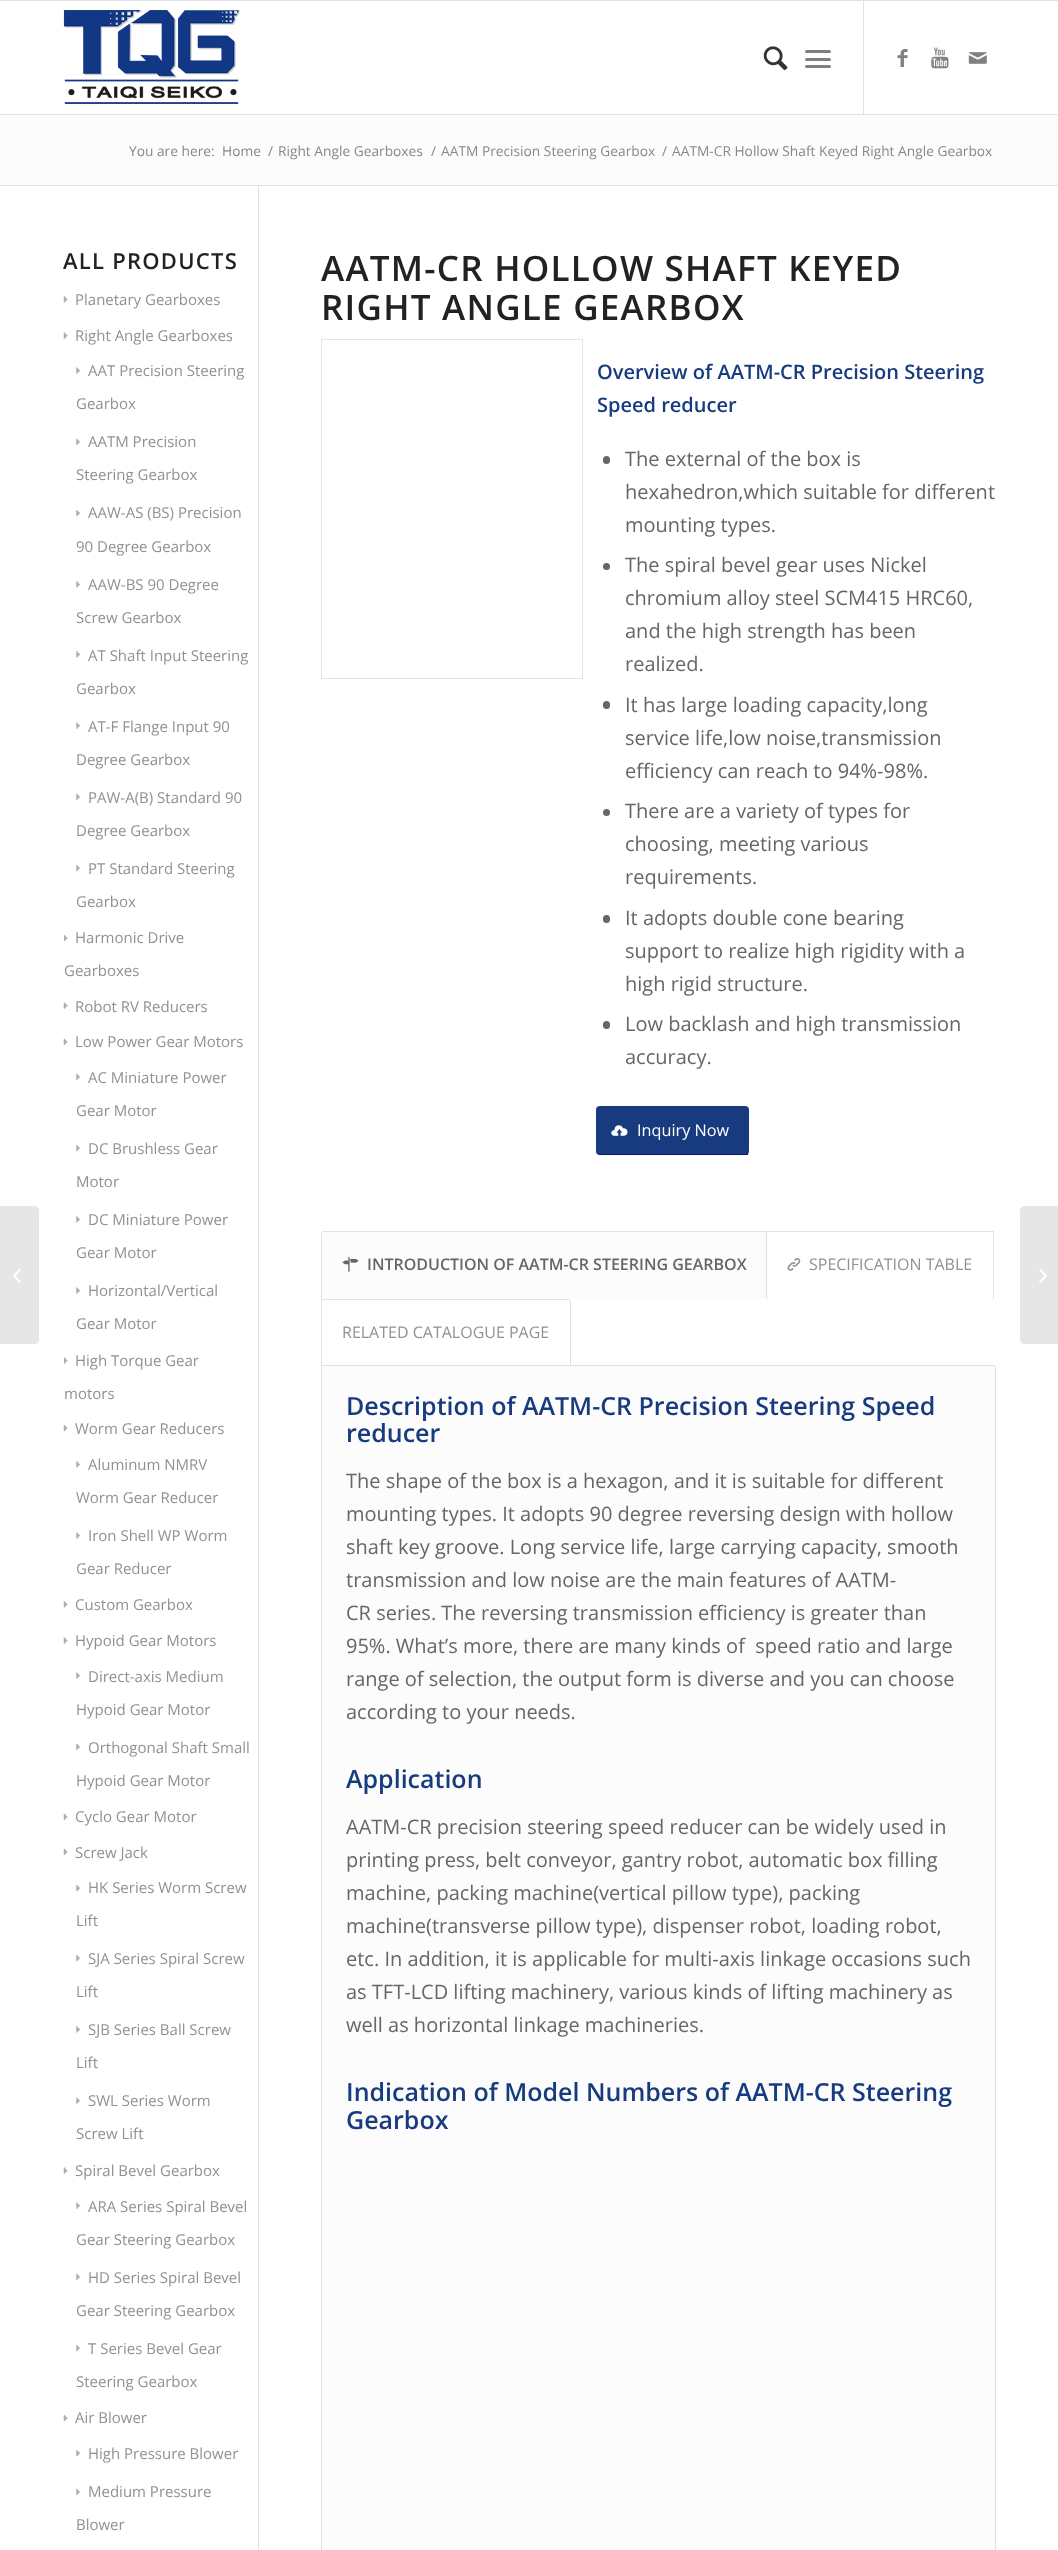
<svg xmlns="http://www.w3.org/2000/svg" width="1058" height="2550">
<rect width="100%" height="100%" fill="#fff"/>
<rect width="1058" height="1" fill="#e1e1e1"/>
<rect y="114" width="1058" height="1" fill="#e1e1e1"/>
<image x="63" y="10" width="178" height="94" href="media/1.png"/>
<rect x="863" y="1" width="1" height="113" fill="#e1e1e1"/>
<image x="763" y="46" width="25" height="25" href="media/2.png"/>
<rect x="805" y="58" width="26" height="3" rx="1.5" fill="#808080"/>
<rect x="805" y="50" width="26" height="3" rx="1.5" fill="#808080"/>
<rect x="805" y="65" width="26" height="3" rx="1.5" fill="#808080"/>
<image x="897" y="49" width="11" height="18" href="media/3.png"/>
<image x="931" y="47" width="18" height="22" href="media/4.png"/>
<image x="968" y="52" width="19" height="12" href="media/5.png"/>
<path d="M0 1206h34c3 0 5 2 5 5v128c0 3-2 5-5 5h-34z" fill="#e6e6e6"/>
<image x="13" y="1269" width="8" height="14" href="media/6.png"/>
<rect y="115" width="1058" height="70" fill="#fcfcfc"/>
<text x="129" y="156" style="font-family:Open Sans;font-size:13.75px;fill:#888">You are here:</text>
<text x="222" y="156" style="font-family:Open Sans;font-size:13.75px;fill:#888">Home</text>
<text x="268" y="156" style="font-family:Open Sans;font-size:13.75px;fill:#888">/</text>
<text x="278" y="156" style="font-family:Open Sans;font-size:13.75px;fill:#888">Right Angle Gearboxes</text>
<text x="431" y="156" style="font-family:Open Sans;font-size:13.75px;fill:#888">/</text>
<text x="441" y="156" style="font-family:Open Sans;font-size:13.75px;fill:#888">AATM Precision Steering Gearbox</text>
<text x="662" y="156" style="font-family:Open Sans;font-size:13.75px;fill:#888">/</text>
<text x="672" y="156" style="font-family:Open Sans;font-size:13.75px;fill:#888">AATM-CR Hollow Shaft Keyed Right Angle Gearbox</text>
<rect y="185" width="1058" height="1" fill="#e1e1e1"/>
<text x="63" y="269" style="font-family:Open Sans;font-size:22px;font-weight:600;letter-spacing:1.25px;fill:#222">ALL PRODUCTS</text>
<image x="63" y="296" width="5" height="7" href="media/7.png"/>
<text x="75" y="305" style="font-family:Open Sans;font-size:15px;fill:#919191">Planetary Gearboxes</text>
<image x="63" y="332" width="5" height="7" href="media/8.png"/>
<text x="75" y="341" style="font-family:Open Sans;font-size:15px;fill:#919191">Right Angle Gearboxes</text>
<image x="76" y="367" width="4" height="7" href="media/9.png"/>
<text x="88" y="376" style="font-family:Open Sans;font-size:15px;fill:#919191">AAT Precision Steering</text>
<text x="76" y="409" style="font-family:Open Sans;font-size:15px;fill:#919191">Gearbox</text>
<image x="76" y="438" width="4" height="7" href="media/10.png"/>
<text x="88" y="447" style="font-family:Open Sans;font-size:15px;fill:#919191">AATM Precision</text>
<text x="76" y="480" style="font-family:Open Sans;font-size:15px;fill:#919191">Steering Gearbox</text>
<image x="76" y="510" width="4" height="7" href="media/11.png"/>
<text x="88" y="518" style="font-family:Open Sans;font-size:15px;fill:#919191">AAW-AS (BS) Precision</text>
<text x="76" y="552" style="font-family:Open Sans;font-size:15px;fill:#919191">90 Degree Gearbox</text>
<image x="76" y="581" width="4" height="7" href="media/12.png"/>
<text x="88" y="590" style="font-family:Open Sans;font-size:15px;fill:#919191">AAW-BS 90 Degree</text>
<text x="76" y="623" style="font-family:Open Sans;font-size:15px;fill:#919191">Screw Gearbox</text>
<image x="76" y="651" width="4" height="7" href="media/12.png"/>
<text x="88" y="661" style="font-family:Open Sans;font-size:15px;fill:#919191">AT Shaft Input Steering</text>
<text x="76" y="694" style="font-family:Open Sans;font-size:15px;fill:#919191">Gearbox</text>
<image x="76" y="722" width="4" height="7" href="media/9.png"/>
<text x="88" y="732" style="font-family:Open Sans;font-size:15px;fill:#919191">AT-F Flange Input 90</text>
<text x="76" y="765" style="font-family:Open Sans;font-size:15px;fill:#919191">Degree Gearbox</text>
<image x="76" y="793" width="4" height="7" href="media/10.png"/>
<text x="88" y="803" style="font-family:Open Sans;font-size:15px;fill:#919191">PAW-A(B) Standard 90</text>
<text x="76" y="836" style="font-family:Open Sans;font-size:15px;fill:#919191">Degree Gearbox</text>
<image x="76" y="865" width="4" height="7" href="media/11.png"/>
<text x="88" y="874" style="font-family:Open Sans;font-size:15px;fill:#919191">PT Standard Steering</text>
<text x="76" y="907" style="font-family:Open Sans;font-size:15px;fill:#919191">Gearbox</text>
<image x="64" y="935" width="4" height="7" href="media/13.png"/>
<text x="75" y="943" style="font-family:Open Sans;font-size:15px;fill:#919191">Harmonic Drive</text>
<text x="64" y="976" style="font-family:Open Sans;font-size:15px;fill:#919191">Gearboxes</text>
<image x="63" y="1002" width="5" height="7" href="media/8.png"/>
<text x="75" y="1012" style="font-family:Open Sans;font-size:15px;fill:#919191">Robot RV Reducers</text>
<image x="63" y="1038" width="5" height="7" href="media/14.png"/>
<text x="75" y="1047" style="font-family:Open Sans;font-size:15px;fill:#919191">Low Power Gear Motors</text>
<image x="76" y="1073" width="4" height="7" href="media/10.png"/>
<text x="88" y="1083" style="font-family:Open Sans;font-size:15px;fill:#919191">AC Miniature Power</text>
<text x="76" y="1116" style="font-family:Open Sans;font-size:15px;fill:#919191">Gear Motor</text>
<image x="76" y="1145" width="4" height="7" href="media/11.png"/>
<text x="88" y="1154" style="font-family:Open Sans;font-size:15px;fill:#919191">DC Brushless Gear</text>
<text x="76" y="1187" style="font-family:Open Sans;font-size:15px;fill:#919191">Motor</text>
<image x="76" y="1216" width="4" height="7" href="media/12.png"/>
<text x="88" y="1225" style="font-family:Open Sans;font-size:15px;fill:#919191">DC Miniature Power</text>
<text x="76" y="1258" style="font-family:Open Sans;font-size:15px;fill:#919191">Gear Motor</text>
<image x="76" y="1287" width="4" height="7" href="media/9.png"/>
<text x="88" y="1296" style="font-family:Open Sans;font-size:15px;fill:#919191">Horizontal/Vertical</text>
<text x="76" y="1329" style="font-family:Open Sans;font-size:15px;fill:#919191">Gear Motor</text>
<image x="64" y="1357" width="4" height="7" href="media/15.png"/>
<text x="75" y="1366" style="font-family:Open Sans;font-size:15px;fill:#919191">High Torque Gear</text>
<text x="64" y="1399" style="font-family:Open Sans;font-size:15px;fill:#919191">motors</text>
<image x="63" y="1425" width="5" height="7" href="media/16.png"/>
<text x="75" y="1434" style="font-family:Open Sans;font-size:15px;fill:#919191">Worm Gear Reducers</text>
<image x="76" y="1461" width="4" height="7" href="media/12.png"/>
<text x="88" y="1470" style="font-family:Open Sans;font-size:15px;fill:#919191">Aluminum NMRV</text>
<text x="76" y="1503" style="font-family:Open Sans;font-size:15px;fill:#919191">Worm Gear Reducer</text>
<image x="76" y="1532" width="4" height="7" href="media/9.png"/>
<text x="88" y="1541" style="font-family:Open Sans;font-size:15px;fill:#919191">Iron Shell WP Worm</text>
<text x="76" y="1574" style="font-family:Open Sans;font-size:15px;fill:#919191">Gear Reducer</text>
<image x="63" y="1601" width="5" height="7" href="media/7.png"/>
<text x="75" y="1610" style="font-family:Open Sans;font-size:15px;fill:#919191">Custom Gearbox</text>
<image x="63" y="1637" width="5" height="7" href="media/8.png"/>
<text x="75" y="1646" style="font-family:Open Sans;font-size:15px;fill:#919191">Hypoid Gear Motors</text>
<image x="76" y="1672" width="4" height="7" href="media/9.png"/>
<text x="88" y="1682" style="font-family:Open Sans;font-size:15px;fill:#919191">Direct-axis Medium</text>
<text x="76" y="1715" style="font-family:Open Sans;font-size:15px;fill:#919191">Hypoid Gear Motor</text>
<image x="76" y="1743" width="4" height="7" href="media/10.png"/>
<text x="88" y="1753" style="font-family:Open Sans;font-size:15px;fill:#919191">Orthogonal Shaft Small</text>
<text x="76" y="1786" style="font-family:Open Sans;font-size:15px;fill:#919191">Hypoid Gear Motor</text>
<image x="63" y="1813" width="5" height="7" href="media/14.png"/>
<text x="75" y="1822" style="font-family:Open Sans;font-size:15px;fill:#919191">Cyclo Gear Motor</text>
<image x="63" y="1848" width="5" height="7" href="media/14.png"/>
<text x="75" y="1858" style="font-family:Open Sans;font-size:15px;fill:#919191">Screw Jack</text>
<image x="76" y="1885" width="4" height="7" href="media/11.png"/>
<text x="88" y="1893" style="font-family:Open Sans;font-size:15px;fill:#919191">HK Series Worm Screw</text>
<text x="76" y="1926" style="font-family:Open Sans;font-size:15px;fill:#919191">Lift</text>
<image x="76" y="1955" width="4" height="7" href="media/11.png"/>
<text x="88" y="1964" style="font-family:Open Sans;font-size:15px;fill:#919191">SJA Series Spiral Screw</text>
<text x="76" y="1997" style="font-family:Open Sans;font-size:15px;fill:#919191">Lift</text>
<image x="76" y="2026" width="4" height="7" href="media/12.png"/>
<text x="88" y="2035" style="font-family:Open Sans;font-size:15px;fill:#919191">SJB Series Ball Screw</text>
<text x="76" y="2068" style="font-family:Open Sans;font-size:15px;fill:#919191">Lift</text>
<image x="76" y="2097" width="4" height="7" href="media/9.png"/>
<text x="88" y="2106" style="font-family:Open Sans;font-size:15px;fill:#919191">SWL Series Worm</text>
<text x="76" y="2139" style="font-family:Open Sans;font-size:15px;fill:#919191">Screw Lift</text>
<image x="63" y="2167" width="5" height="7" href="media/8.png"/>
<text x="75" y="2176" style="font-family:Open Sans;font-size:15px;fill:#919191">Spiral Bevel Gearbox</text>
<image x="76" y="2202" width="4" height="7" href="media/9.png"/>
<text x="88" y="2212" style="font-family:Open Sans;font-size:15px;fill:#919191">ARA Series Spiral Bevel</text>
<text x="76" y="2245" style="font-family:Open Sans;font-size:15px;fill:#919191">Gear Steering Gearbox</text>
<image x="76" y="2273" width="4" height="7" href="media/10.png"/>
<text x="88" y="2283" style="font-family:Open Sans;font-size:15px;fill:#919191">HD Series Spiral Bevel</text>
<text x="76" y="2316" style="font-family:Open Sans;font-size:15px;fill:#919191">Gear Steering Gearbox</text>
<image x="76" y="2345" width="4" height="7" href="media/11.png"/>
<text x="88" y="2354" style="font-family:Open Sans;font-size:15px;fill:#919191">T Series Bevel Gear</text>
<text x="76" y="2387" style="font-family:Open Sans;font-size:15px;fill:#919191">Steering Gearbox</text>
<image x="63" y="2415" width="5" height="7" href="media/16.png"/>
<text x="75" y="2423" style="font-family:Open Sans;font-size:15px;fill:#919191">Air Blower</text>
<image x="76" y="2450" width="4" height="7" href="media/11.png"/>
<text x="88" y="2459" style="font-family:Open Sans;font-size:15px;fill:#919191">High Pressure Blower</text>
<image x="76" y="2488" width="4" height="7" href="media/10.png"/>
<text x="88" y="2497" style="font-family:Open Sans;font-size:15px;fill:#919191">Medium Pressure</text>
<text x="76" y="2530" style="font-family:Open Sans;font-size:15px;fill:#919191">Blower</text>
<rect x="258" y="186" width="1" height="2364" fill="#e1e1e1"/>
<text x="321" y="281" style="font-family:Open Sans;font-size:35px;font-weight:600;letter-spacing:1.25px;fill:#222">AATM-CR HOLLOW SHAFT KEYED</text>
<text x="321" y="320" style="font-family:Open Sans;font-size:35px;font-weight:600;letter-spacing:1.25px;fill:#222">RIGHT ANGLE GEARBOX</text>
<rect x="321.5" y="339.5" width="261" height="339" fill="none" stroke="#e5e5e5"/>
<text x="597" y="379" style="font-family:Open Sans;font-size:20px;font-weight:600;fill:#183b80">Overview of AATM-CR Precision Steering</text>
<text x="597" y="412" style="font-family:Open Sans;font-size:20px;font-weight:600;fill:#183b80">Speed reducer</text>
<rect x="603" y="456" width="7" height="8" rx="3.5" fill="#666"/>
<text x="625" y="466" style="font-family:Open Sans;font-size:20px;fill:#666">The external of the box is</text>
<text x="625" y="499" style="font-family:Open Sans;font-size:20px;fill:#666">hexahedron,which suitable for different</text>
<text x="625" y="532" style="font-family:Open Sans;font-size:20px;fill:#666">mounting types.</text>
<circle cx="606.5" cy="566.5" r="3.5" fill="#666"/>
<text x="625" y="572" style="font-family:Open Sans;font-size:20px;fill:#666">The spiral bevel gear uses Nickel</text>
<text x="625" y="605" style="font-family:Open Sans;font-size:20px;fill:#666">chromium alloy steel SCM415 HRC60,</text>
<text x="625" y="638" style="font-family:Open Sans;font-size:20px;fill:#666">and the high strength has been</text>
<text x="625" y="671" style="font-family:Open Sans;font-size:20px;fill:#666">realized.</text>
<rect x="603" y="701" width="7" height="8" rx="3.5" fill="#666"/>
<text x="625" y="712" style="font-family:Open Sans;font-size:20px;fill:#666">It has large loading capacity,long</text>
<text x="625" y="745" style="font-family:Open Sans;font-size:20px;fill:#666">service life,low noise,transmission</text>
<text x="625" y="778" style="font-family:Open Sans;font-size:20px;fill:#666">efficiency can reach to 94%-98%.</text>
<circle cx="606.5" cy="812.5" r="3.5" fill="#666"/>
<text x="625" y="818" style="font-family:Open Sans;font-size:20px;fill:#666">There are a variety of types for</text>
<text x="625" y="851" style="font-family:Open Sans;font-size:20px;fill:#666">choosing, meeting various</text>
<text x="625" y="884" style="font-family:Open Sans;font-size:20px;fill:#666">requirements.</text>
<rect x="603" y="915" width="7" height="8" rx="3.5" fill="#666"/>
<text x="625" y="925" style="font-family:Open Sans;font-size:20px;fill:#666">It adopts double cone bearing</text>
<text x="625" y="958" style="font-family:Open Sans;font-size:20px;fill:#666">support to realize high rigidity with a</text>
<text x="625" y="991" style="font-family:Open Sans;font-size:20px;fill:#666">high rigid structure.</text>
<rect x="603" y="1021" width="7" height="8" rx="3.5" fill="#666"/>
<text x="625" y="1031" style="font-family:Open Sans;font-size:20px;fill:#666">Low backlash and high transmission</text>
<text x="625" y="1064" style="font-family:Open Sans;font-size:20px;fill:#666">accuracy.</text>
<rect x="596" y="1106" width="153" height="49" rx="4" fill="#183b80"/>
<rect x="599" y="1154" width="149" height="1" fill="#061960"/>
<image x="611" y="1125" width="17" height="11" href="media/17.png"/>
<text x="637" y="1136" style="font-family:Open Sans;font-size:16.25px;fill:#fff">Inquiry Now</text>
<rect x="766" y="1231" width="228" height="1" fill="#e1e1e1"/>
<path d="M323.5 1231h444.5v68h-447v-65.5c0-1.5 1-2.5 2.5-2.5z" fill="#fcfcfc"/>
<rect x="323" y="1231" width="445" height="1" fill="#e1e1e1"/>
<rect x="766" y="1231" width="1" height="68" fill="#e1e1e1"/>
<rect x="321" y="1233" width="1" height="66" fill="#e1e1e1"/>
<image x="342" y="1257" width="17" height="15" href="media/18.png"/>
<text x="367" y="1270" style="font-family:Open Sans;font-size:16px;font-weight:600;fill:#666">INTRODUCTION OF AATM-CR STEERING GEARBOX</text>
<rect x="993" y="1231" width="1" height="68" fill="#e1e1e1"/>
<image x="787" y="1258" width="14" height="13" href="media/19.png"/>
<text x="809" y="1270" style="font-family:Open Sans;font-size:16px;fill:#919191">SPECIFICATION TABLE</text>
<rect x="321" y="1299" width="249" height="1" fill="#e1e1e1"/>
<rect x="321.5" y="1365.5" width="674" height="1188" rx="2" fill="#fcfcfc" stroke="#e1e1e1"/>
<rect x="570" y="1300" width="1" height="66" fill="#e1e1e1"/>
<rect x="321" y="1299" width="1" height="67" fill="#e1e1e1"/>
<text x="342" y="1338" style="font-family:Open Sans;font-size:16px;fill:#919191">RELATED CATALOGUE PAGE</text>
<text x="346" y="1415" style="font-family:Open Sans;font-size:25px;font-weight:600;fill:#183b80">Description of AATM-CR Precision Steering Speed</text>
<text x="346" y="1442" style="font-family:Open Sans;font-size:25px;font-weight:600;fill:#183b80">reducer</text>
<text x="346" y="1488" style="font-family:Open Sans;font-size:20px;fill:#666">The shape of the box is a hexagon, and it is suitable for different</text>
<text x="346" y="1521" style="font-family:Open Sans;font-size:20px;fill:#666">mounting types. It adopts 90 degree reversing design with hollow</text>
<text x="346" y="1554" style="font-family:Open Sans;font-size:20px;fill:#666">shaft key groove. Long service life, large carrying capacity, smooth</text>
<text x="346" y="1587" style="font-family:Open Sans;font-size:20px;fill:#666">transmission and low noise are the main features of AATM-</text>
<text x="346" y="1620" style="font-family:Open Sans;font-size:20px;fill:#666">CR series. The reversing transmission efficiency is greater than</text>
<text x="346" y="1653" style="font-family:Open Sans;font-size:20px;fill:#666" xml:space="preserve">95%. What’s more, there are many kinds of  speed ratio and large</text>
<text x="346" y="1686" style="font-family:Open Sans;font-size:20px;fill:#666">range of selection, the output form is diverse and you can choose</text>
<text x="346" y="1719" style="font-family:Open Sans;font-size:20px;fill:#666">according to your needs.</text>
<text x="346" y="1788" style="font-family:Open Sans;font-size:25px;font-weight:600;fill:#183b80">Application</text>
<text x="346" y="1834" style="font-family:Open Sans;font-size:20px;fill:#666">AATM-CR precision steering speed reducer can be widely used in</text>
<text x="346" y="1867" style="font-family:Open Sans;font-size:20px;fill:#666">printing press, belt conveyor, gantry robot, automatic box filling</text>
<text x="346" y="1900" style="font-family:Open Sans;font-size:20px;fill:#666">machine, packing machine(vertical pillow type), packing</text>
<text x="346" y="1933" style="font-family:Open Sans;font-size:20px;fill:#666">machine(transverse pillow type), dispenser robot, loading robot,</text>
<text x="346" y="1966" style="font-family:Open Sans;font-size:20px;fill:#666">etc. In addition, it is applicable for multi-axis linkage occasions such</text>
<text x="346" y="1999" style="font-family:Open Sans;font-size:20px;fill:#666">as TFT-LCD lifting machinery, various kinds of lifting machinery as</text>
<text x="346" y="2032" style="font-family:Open Sans;font-size:20px;fill:#666">well as horizontal linkage machineries.</text>
<text x="346" y="2101" style="font-family:Open Sans;font-size:25px;font-weight:600;fill:#183b80">Indication of Model Numbers of AATM-CR Steering</text>
<text x="346" y="2129" style="font-family:Open Sans;font-size:25px;font-weight:600;fill:#183b80">Gearbox</text>
<path d="M1025 1206h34v138h-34c-3 0-5-2-5-5v-128c0-3 2-5 5-5z" fill="#e6e6e6"/>
<image x="1039" y="1269" width="8" height="14" href="media/20.png"/>
</svg>
